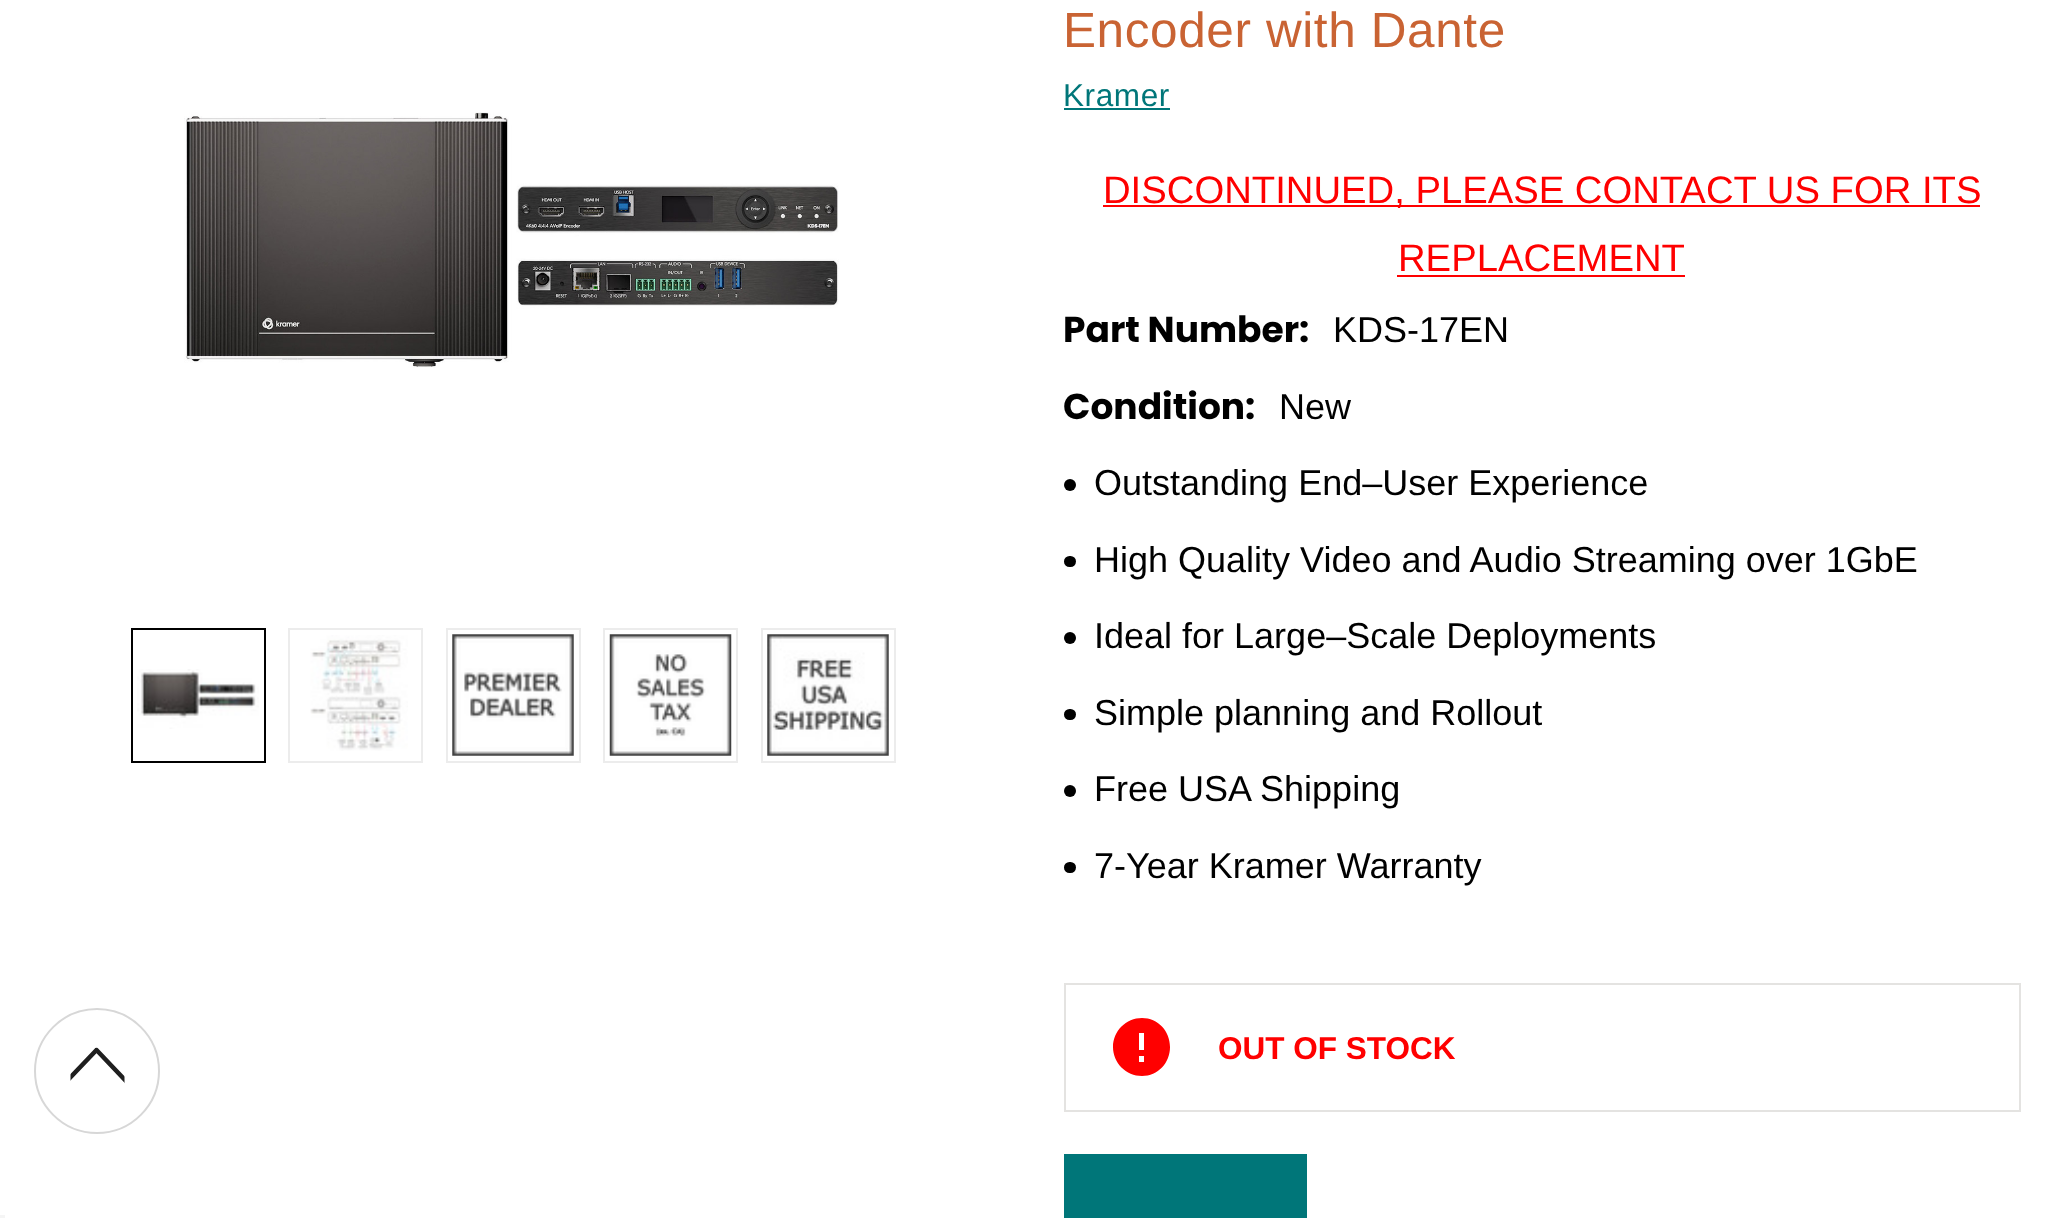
<svg xmlns="http://www.w3.org/2000/svg" width="2054" height="1218">
<defs>
<clipPath id="clip1"><path d="M124.5 1047.5v54h-54v-54z"/></clipPath>
</defs>
<rect width="100%" height="100%" fill="#fff"/>
<circle cx="97" cy="1071" r="62" fill="none" stroke="#d7d7d7" stroke-width="2"/>
<g clip-path="url(#clip1)">
<path d="M141.5 1097.5l-45-47.5l-45 47" fill="none" stroke="#1f1f1f" stroke-width="4.5" stroke-linecap="round" stroke-linejoin="round"/>
</g>
<text x="1063" y="47" style="font-family:Liberation Sans;font-size:49.5px;letter-spacing:0.6px;fill:#c96333">Encoder with Dante</text>
<text x="1063" y="106" style="font-family:Liberation Sans;font-size:31.5px;letter-spacing:0.6px;fill:#007679">Kramer</text>
<rect x="1064" y="108" width="106" height="2" fill="#007679"/>
<image x="184" y="112" width="655" height="256" href="media/1.png"/>
<rect x="132" y="629" width="133" height="133" fill="none" stroke="#000" stroke-width="2"/>
<image x="137" y="669" width="122" height="60" href="media/2.png"/>
<rect x="289" y="629" width="133" height="133" fill="none" stroke="#ececec" stroke-width="2"/>
<image x="310" y="635" width="98" height="116" href="media/3.png"/>
<rect x="447" y="629" width="133" height="133" fill="none" stroke="#ececec" stroke-width="2"/>
<image x="452" y="634" width="122" height="122" href="media/4.png"/>
<rect x="604" y="629" width="133" height="133" fill="none" stroke="#ececec" stroke-width="2"/>
<image x="609" y="634" width="123" height="122" href="media/5.png"/>
<rect x="762" y="629" width="133" height="133" fill="none" stroke="#ececec" stroke-width="2"/>
<image x="767" y="634" width="122" height="122" href="media/6.png"/>
<rect x="1103" y="205" width="877" height="2" fill="#f00"/>
<text x="1103" y="203" style="font-family:Liberation Sans;font-size:38.25px;fill:#f00">DISCONTINUED, PLEASE CONTACT US FOR ITS</text>
<text x="1398" y="271" style="font-family:Liberation Sans;font-size:38.25px;fill:#f00">REPLACEMENT</text>
<rect x="1397" y="275" width="288" height="2" fill="#f00"/>
<text x="1063" y="342" style="font-family:Poppins;font-size:36px;font-weight:bold;fill:#000">Part Number:</text>
<text x="1333" y="342" style="font-family:Liberation Sans;font-size:36px;fill:#000">KDS-17EN</text>
<text x="1063" y="419" style="font-family:Poppins;font-size:36px;font-weight:bold;fill:#000">Condition:</text>
<text x="1279" y="419" style="font-family:Liberation Sans;font-size:36px;fill:#000">New</text>
<circle cx="1070" cy="485" r="6" fill="#000"/>
<text x="1094" y="495" style="font-family:Liberation Sans;font-size:36px;fill:#000">Outstanding End–User Experience</text>
<rect x="1064" y="556" width="12" height="11" rx="5.5" fill="#000"/>
<text x="1094" y="572" style="font-family:Liberation Sans;font-size:36px;fill:#000">High Quality Video and Audio Streaming over 1GbE</text>
<circle cx="1070" cy="638" r="6" fill="#000"/>
<text x="1094" y="648" style="font-family:Liberation Sans;font-size:36px;fill:#000">Ideal for Large–Scale Deployments</text>
<rect x="1064" y="709" width="12" height="11" rx="5.5" fill="#000"/>
<text x="1094" y="725" style="font-family:Liberation Sans;font-size:36px;fill:#000">Simple planning and Rollout</text>
<circle cx="1070" cy="791" r="6" fill="#000"/>
<text x="1094" y="801" style="font-family:Liberation Sans;font-size:36px;fill:#000">Free USA Shipping</text>
<rect x="1064" y="862" width="12" height="11" rx="5.5" fill="#000"/>
<text x="1094" y="878" style="font-family:Liberation Sans;font-size:36px;fill:#000">7-Year Kramer Warranty</text>
<rect x="1065" y="984" width="955" height="127" fill="none" stroke="#e4e3e1" stroke-width="2"/>
<path d="M1142 1018c-16 0-29 13-29 29c0 16 13 29 29 29c16 0 28-13 28-29c0-16-12-29-28-29zm2 44h-5v-6h5zm0-12h-5v-17h5z" fill="#f00"/>
<text x="1218" y="1059" style="font-family:Liberation Sans;font-size:31.5px;font-weight:bold;fill:#f00">OUT OF STOCK</text>
<rect x="1064" y="1154" width="243" height="64" fill="#007679"/>
<rect y="1215" width="5" height="3" fill="#f5f5f5"/>
</svg>
